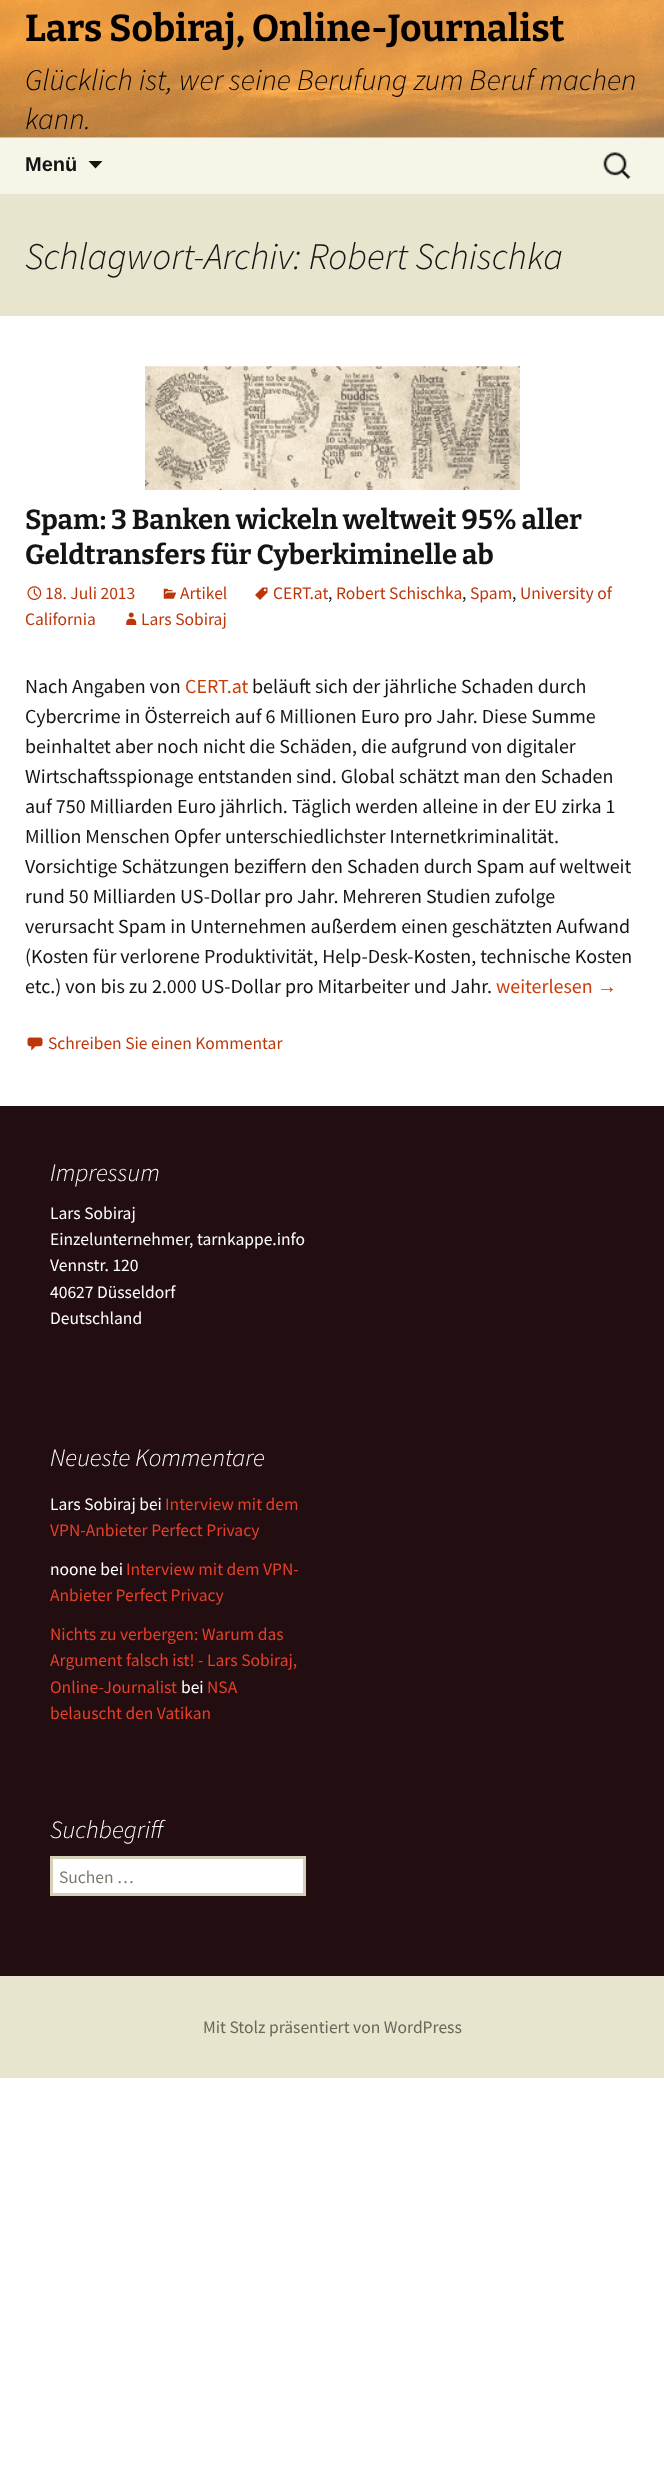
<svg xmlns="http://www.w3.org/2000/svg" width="664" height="2490">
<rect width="100%" height="100%" fill="#fff"/>
<image x="0" y="0" width="664" height="138" href="media/1.png"/>
<text x="25" y="41" style="font-family:Bitter;font-size:37.5px;font-weight:100;fill:#020000">Lars Sobiraj, Online-Journalist</text>
<text x="25" y="90" style="font-family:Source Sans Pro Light;font-size:30px;font-weight:300;font-style:italic;fill:#020000">Glücklich ist, wer seine Berufung zum Beruf machen</text>
<text x="25" y="129" style="font-family:Source Sans Pro Light;font-size:30px;font-weight:300;font-style:italic;fill:#020000">kann.</text>
<rect y="138" width="664" height="56" fill="#f7f5e7"/>
<text x="25" y="171" style="font-family:Liberation Sans;font-size:20px;font-weight:bold;fill:#141412">Menü</text>
<path d="M88.5 161l7 7.5l7-7.5z" fill="#141412"/>
<image x="603" y="152" width="28" height="27" href="media/2.png"/>
<rect y="194" width="664" height="122" fill="#e8e5ce"/>
<text x="25" y="269" style="font-family:Source Sans Pro Light;font-size:37.5px;font-weight:300;font-style:italic;fill:#141412">Schlagwort-Archiv: Robert Schischka</text>
<image x="145" y="366" width="375" height="124" href="media/3.png"/>
<text x="25" y="529" style="font-family:Bitter;font-size:27.5px;font-weight:100;fill:#141412">Spam: 3 Banken wickeln weltweit 95% aller</text>
<text x="25" y="564" style="font-family:Bitter;font-size:27.5px;font-weight:100;fill:#141412">Geldtransfers für Cyberkiminelle ab</text>
<image x="255" y="587" width="13" height="13" href="media/4.png"/>
<text x="273" y="599" style="font-family:Source Sans Pro;font-size:17.5px;fill:#bc360a">CERT.at</text>
<text x="328" y="599" style="font-family:Source Sans Pro;font-size:17.5px;fill:#141412">,</text>
<text x="336" y="599" style="font-family:Source Sans Pro;font-size:17.5px;fill:#bc360a">Robert Schischka</text>
<text x="462" y="599" style="font-family:Source Sans Pro;font-size:17.5px;fill:#141412">,</text>
<text x="470" y="599" style="font-family:Source Sans Pro;font-size:17.5px;fill:#bc360a">Spam</text>
<text x="512" y="599" style="font-family:Source Sans Pro;font-size:17.5px;fill:#141412">,</text>
<text x="520" y="599" style="font-family:Source Sans Pro;font-size:17.5px;fill:#bc360a">University of</text>
<text x="25" y="625" style="font-family:Source Sans Pro;font-size:17.5px;fill:#bc360a">California</text>
<image x="27" y="586" width="15" height="14" href="media/5.png"/>
<text x="45" y="599" style="font-family:Source Sans Pro;font-size:17.5px;fill:#bc360a">18. Juli 2013</text>
<image x="163" y="588" width="14" height="11" href="media/6.png"/>
<text x="180" y="599" style="font-family:Source Sans Pro;font-size:17.5px;fill:#bc360a">Artikel</text>
<image x="126" y="612" width="11" height="13" href="media/7.png"/>
<text x="141" y="625" style="font-family:Source Sans Pro;font-size:17.5px;fill:#bc360a">Lars Sobiraj</text>
<text x="25" y="693" style="font-family:Source Sans Pro;font-size:20px;fill:#141412">Nach Angaben von</text>
<text x="185" y="693" style="font-family:Source Sans Pro;font-size:20px;fill:#ca3c08">CERT.at</text>
<text x="252" y="693" style="font-family:Source Sans Pro;font-size:20px;fill:#141412">beläuft sich der jährliche Schaden durch</text>
<text x="25" y="723" style="font-family:Source Sans Pro;font-size:20px;fill:#141412">Cybercrime in Österreich auf 6 Millionen Euro pro Jahr. Diese Summe</text>
<text x="25" y="753" style="font-family:Source Sans Pro;font-size:20px;fill:#141412">beinhaltet aber noch nicht die Schäden, die aufgrund von digitaler</text>
<text x="25" y="783" style="font-family:Source Sans Pro;font-size:20px;fill:#141412">Wirtschaftsspionage entstanden sind. Global schätzt man den Schaden</text>
<text x="25" y="813" style="font-family:Source Sans Pro;font-size:20px;fill:#141412">auf 750 Milliarden Euro jährlich. Täglich werden alleine in der EU zirka 1</text>
<text x="25" y="843" style="font-family:Source Sans Pro;font-size:20px;fill:#141412">Million Menschen Opfer unterschiedlichster Internetkriminalität.</text>
<text x="25" y="873" style="font-family:Source Sans Pro;font-size:20px;fill:#141412">Vorsichtige Schätzungen beziffern den Schaden durch Spam auf weltweit</text>
<text x="25" y="903" style="font-family:Source Sans Pro;font-size:20px;fill:#141412">rund 50 Milliarden US-Dollar pro Jahr. Mehreren Studien zufolge</text>
<text x="25" y="933" style="font-family:Source Sans Pro;font-size:20px;fill:#141412">verursacht Spam in Unternehmen außerdem einen geschätzten Aufwand</text>
<text x="25" y="963" style="font-family:Source Sans Pro;font-size:20px;fill:#141412">(Kosten für verlorene Produktivität, Help-Desk-Kosten, technische Kosten</text>
<text x="25" y="993" style="font-family:Source Sans Pro;font-size:20px;fill:#141412">etc.) von bis zu 2.000 US-Dollar pro Mitarbeiter und Jahr.</text>
<text x="496" y="993" style="font-family:Source Sans Pro;font-size:20px;fill:#ca3c08">weiterlesen</text>
<text x="597" y="993" style="font-family:Liberation Sans;font-size:20px;fill:#ca3c08">→</text>
<image x="27" y="1037" width="16" height="14" href="media/8.png"/>
<text x="48" y="1049" style="font-family:Source Sans Pro;font-size:17.5px;fill:#bc360a">Schreiben Sie einen Kommentar</text>
<rect y="1976" width="664" height="102" fill="#e8e5ce"/>
<rect y="1106" width="664" height="870" fill="#220e10"/>
<text x="50" y="1181" style="font-family:Source Sans Pro Light;font-size:25px;font-weight:300;font-style:italic;fill:#fff">Impressum</text>
<text x="50" y="1219" style="font-family:Source Sans Pro;font-size:17.5px;fill:#fff">Lars Sobiraj</text>
<text x="50" y="1245" style="font-family:Source Sans Pro;font-size:17.5px;fill:#fff">Einzelunternehmer, tarnkappe.info</text>
<text x="50" y="1271" style="font-family:Source Sans Pro;font-size:17.5px;fill:#fff">Vennstr. 120</text>
<text x="50" y="1298" style="font-family:Source Sans Pro;font-size:17.5px;fill:#fff">40627 Düsseldorf</text>
<text x="50" y="1324" style="font-family:Source Sans Pro;font-size:17.5px;fill:#fff">Deutschland</text>
<text x="50" y="1466" style="font-family:Source Sans Pro Light;font-size:25px;font-weight:300;font-style:italic;fill:#fff">Neueste Kommentare</text>
<text x="50" y="1510" style="font-family:Source Sans Pro;font-size:17.5px;fill:#fff">Lars Sobiraj bei</text>
<text x="165" y="1510" style="font-family:Source Sans Pro;font-size:17.5px;fill:#e6402a">Interview mit dem</text>
<text x="50" y="1536" style="font-family:Source Sans Pro;font-size:17.5px;fill:#e6402a">VPN-Anbieter Perfect Privacy</text>
<text x="50" y="1575" style="font-family:Source Sans Pro;font-size:17.5px;fill:#fff">noone bei</text>
<text x="126" y="1575" style="font-family:Source Sans Pro;font-size:17.5px;fill:#e6402a">Interview mit dem VPN-</text>
<text x="50" y="1601" style="font-family:Source Sans Pro;font-size:17.5px;fill:#e6402a">Anbieter Perfect Privacy</text>
<text x="50" y="1640" style="font-family:Source Sans Pro;font-size:17.5px;fill:#e6402a">Nichts zu verbergen: Warum das</text>
<text x="50" y="1666" style="font-family:Source Sans Pro;font-size:17.5px;fill:#e6402a">Argument falsch ist! - Lars Sobiraj,</text>
<text x="50" y="1693" style="font-family:Source Sans Pro;font-size:17.5px;fill:#e6402a">Online-Journalist</text>
<text x="181" y="1693" style="font-family:Source Sans Pro;font-size:17.5px;fill:#fff">bei</text>
<text x="207" y="1693" style="font-family:Source Sans Pro;font-size:17.5px;fill:#e6402a">NSA</text>
<text x="50" y="1719" style="font-family:Source Sans Pro;font-size:17.5px;fill:#e6402a">belauscht den Vatikan</text>
<text x="50" y="1838" style="font-family:Source Sans Pro Light;font-size:25px;font-weight:300;font-style:italic;fill:#fff">Suchbegriff</text>
<rect x="51.5" y="1857.5" width="253" height="37" fill="#fff" stroke="#d4d0ba" stroke-width="3"/>
<text x="59" y="1883" style="font-family:Source Sans Pro;font-size:17.5px;fill:#7d7b6d">Suchen …</text>
<text x="203" y="2033" style="font-family:Source Sans Pro;font-size:17.5px;fill:#686758">Mit Stolz präsentiert von WordPress</text>
</svg>
